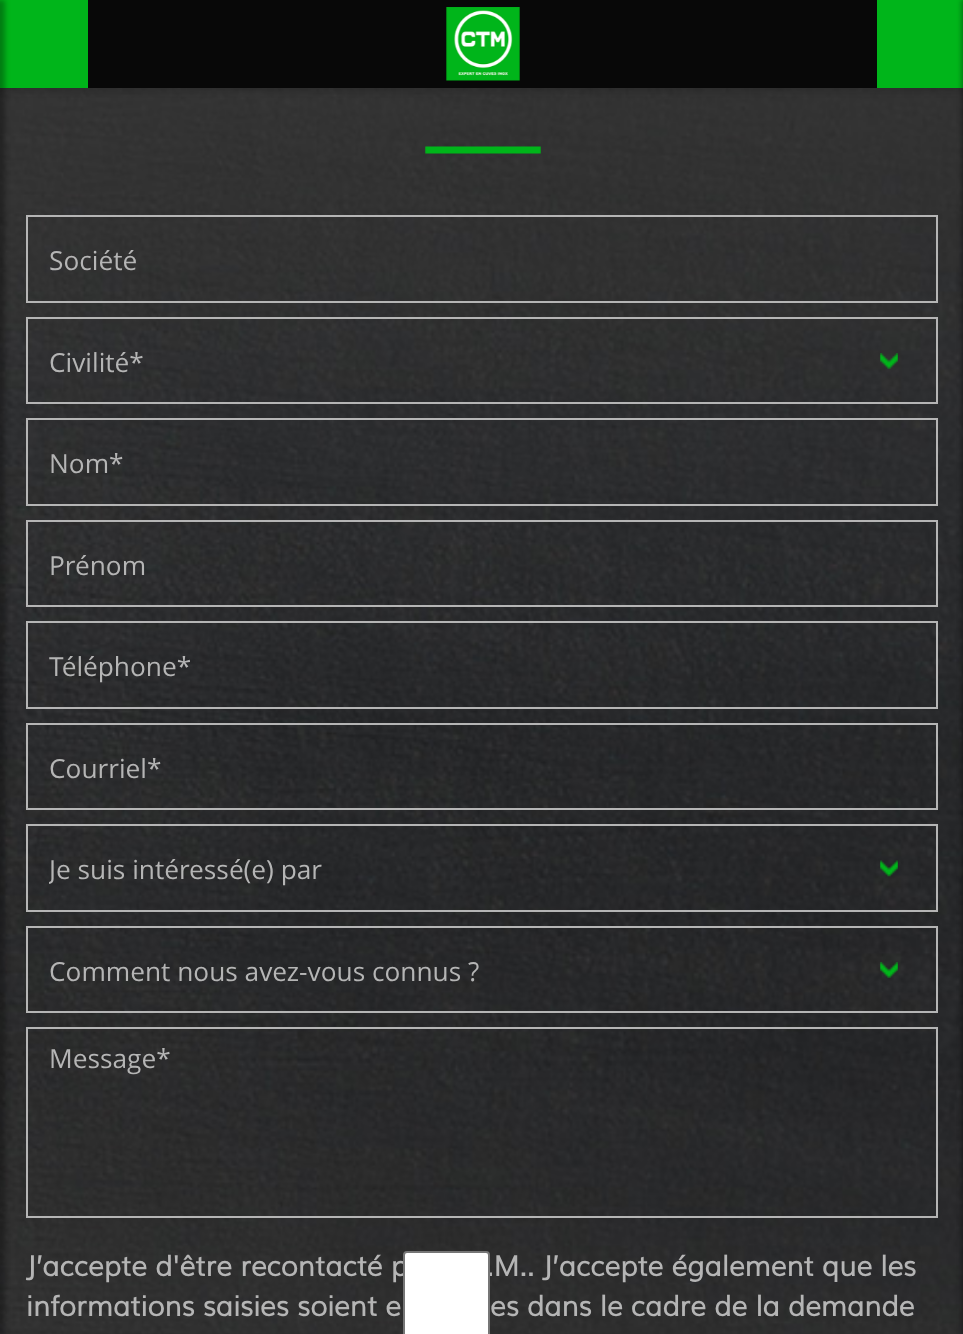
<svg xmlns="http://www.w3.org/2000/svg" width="963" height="1334">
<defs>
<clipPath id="clip1"><rect x="49" y="851" width="866" height="35"/></clipPath>
</defs>
<rect width="100%" height="100%" fill="#fff"/>
<image x="0" y="88" width="963" height="1246" href="media/2.png"/>
<rect x="-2" y="2" width="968" height="91" fill="#0000001a" filter="blur(2.5px)"/>
<rect width="88" height="88" fill="#00b51a"/>
<rect x="88" width="789" height="88" fill="#080808"/>
<image x="446" y="7" width="74" height="74" href="media/1.png"/>
<rect x="877" width="86" height="88" fill="#00b51a"/>
<rect x="-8" width="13" height="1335" fill="#0000004d" filter="blur(2.5px)"/>
<image x="425" y="146" width="116" height="8" href="media/3.png"/>
<rect x="27" y="216" width="910" height="86" fill="none" stroke="#b5b5b5" stroke-width="2"/>
<text x="49" y="270" style="font-family:Open Sans;font-size:26.25px;fill:#b5b5b5">Société</text>
<image x="880" y="353" width="18" height="16" href="media/4.png"/>
<rect x="27" y="318" width="910" height="85" fill="none" stroke="#b5b5b5" stroke-width="2"/>
<text x="49" y="372" style="font-family:Open Sans;font-size:26.25px;fill:#b5b5b5">Civilité*</text>
<rect x="27" y="419" width="910" height="86" fill="none" stroke="#b5b5b5" stroke-width="2"/>
<text x="49" y="473" style="font-family:Open Sans;font-size:26.25px;fill:#b5b5b5">Nom*</text>
<rect x="27" y="521" width="910" height="85" fill="none" stroke="#b5b5b5" stroke-width="2"/>
<text x="49" y="575" style="font-family:Open Sans;font-size:26.25px;fill:#b5b5b5">Prénom</text>
<rect x="27" y="622" width="910" height="86" fill="none" stroke="#b5b5b5" stroke-width="2"/>
<text x="49" y="676" style="font-family:Open Sans;font-size:26.25px;fill:#b5b5b5">Téléphone*</text>
<rect x="27" y="724" width="910" height="85" fill="none" stroke="#b5b5b5" stroke-width="2"/>
<text x="49" y="778" style="font-family:Open Sans;font-size:26.25px;fill:#b5b5b5">Courriel*</text>
<image x="880" y="860" width="18" height="17" href="media/5.png"/>
<rect x="27" y="825" width="910" height="86" fill="none" stroke="#b5b5b5" stroke-width="2"/>
<g clip-path="url(#clip1)">
<text x="49" y="879" style="font-family:Open Sans;font-size:26.25px;fill:#b5b5b5">Je suis intéressé(e) par</text>
</g>
<image x="880" y="962" width="18" height="16" href="media/6.png"/>
<rect x="27" y="927" width="910" height="85" fill="none" stroke="#b5b5b5" stroke-width="2"/>
<text x="49" y="981" style="font-family:Open Sans;font-size:26.25px;fill:#b5b5b5">Comment nous avez-vous connus ?</text>
<rect x="27" y="1028" width="910" height="189" fill="none" stroke="#b5b5b5" stroke-width="2"/>
<text x="49" y="1068" style="font-family:Open Sans;font-size:26.25px;fill:#b5b5b5">Message*</text>
<text x="26" y="1276" style="font-family:Muli;font-size:28px;font-weight:bold;fill:#b5b5b5">J’accepte d'être recontacté p</text>
<text x="486" y="1276" style="font-family:Muli;font-size:28px;font-weight:bold;fill:#b5b5b5">.M.. J’accepte également que les</text>
<rect x="404" y="1252" width="85" height="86" rx="3" fill="#fff" stroke="#767676" stroke-width="2"/>
<text x="26" y="1316" style="font-family:Muli;font-size:28px;font-weight:bold;fill:#b5b5b5">informations saisies soient e</text>
<text x="490" y="1316" style="font-family:Muli;font-size:28px;font-weight:bold;fill:#b5b5b5">es dans le cadre de la demande</text>
<rect x="961" width="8" height="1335" fill="#0000004d" filter="blur(2px)"/>
</svg>
